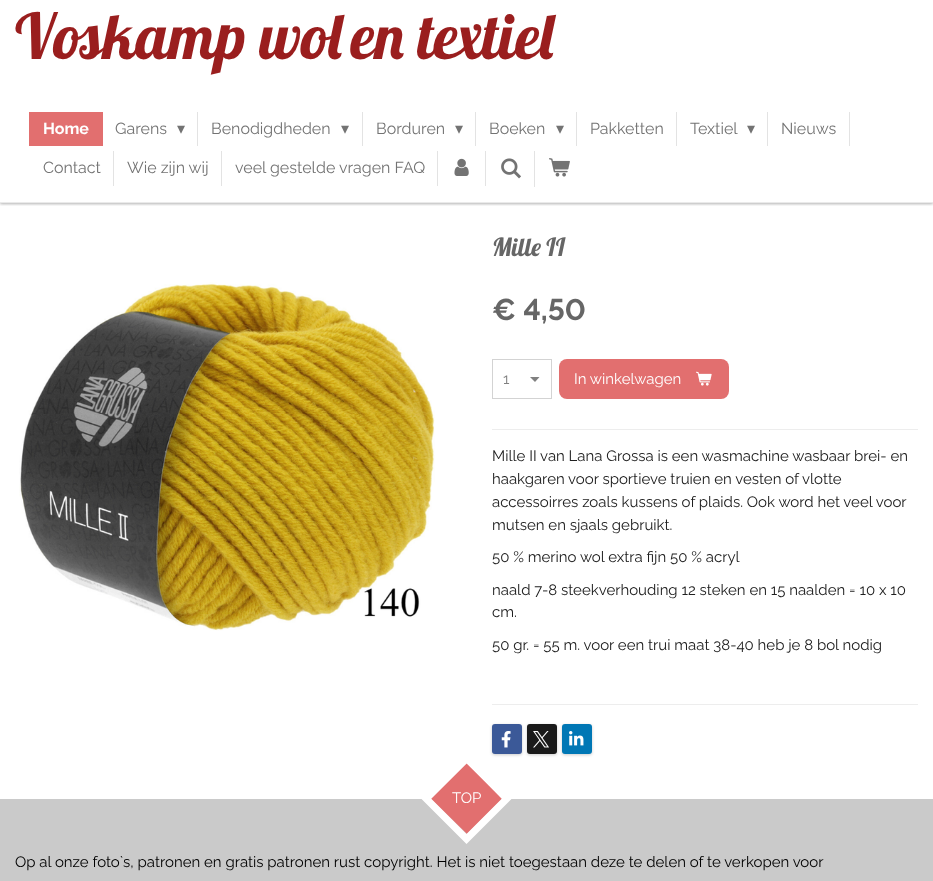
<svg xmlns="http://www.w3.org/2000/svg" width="933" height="881">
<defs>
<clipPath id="clip1"><rect x="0" y="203" width="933" height="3"/></clipPath>
</defs>
<rect width="100%" height="100%" fill="#fff"/>
<g clip-path="url(#clip1)">
<rect y="-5" width="933" height="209" fill="#0000004d" filter="blur(1.5px)"/>
</g>
<rect y="202" width="933" height="1" fill="#eaeaea"/>
<text x="15" y="59" style="font-family:Lobster;font-size:63px;fill:#9a1e1e">Voskamp wol</text>
<text x="351" y="59" style="font-family:Lobster;font-size:63px;fill:#9a1e1e">en textiel</text>
<rect x="29" y="112" width="74" height="34" fill="#e26f6f"/>
<text x="43" y="134" style="font-family:Raleway;font-size:16px;font-weight:bold;fill:#fff">Home</text>
<text x="115" y="134" style="font-family:Raleway;font-size:16px;fill:#737373">Garens</text>
<text x="177" y="134" style="font-family:DejaVu Sans;font-size:16px;fill:#737373">▾</text>
<rect x="197" y="112" width="1" height="34" fill="#e3e3e3"/>
<text x="211" y="134" style="font-family:Raleway;font-size:16px;fill:#737373">Benodigdheden</text>
<text x="341" y="134" style="font-family:DejaVu Sans;font-size:16px;fill:#737373">▾</text>
<rect x="362" y="112" width="1" height="34" fill="#e3e3e3"/>
<text x="376" y="134" style="font-family:Raleway;font-size:16px;fill:#737373">Borduren</text>
<text x="455" y="134" style="font-family:DejaVu Sans;font-size:16px;fill:#737373">▾</text>
<rect x="475" y="112" width="1" height="34" fill="#e3e3e3"/>
<text x="489" y="134" style="font-family:Raleway;font-size:16px;fill:#737373">Boeken</text>
<text x="556" y="134" style="font-family:DejaVu Sans;font-size:16px;fill:#737373">▾</text>
<rect x="576" y="112" width="1" height="34" fill="#e3e3e3"/>
<text x="590" y="134" style="font-family:Raleway;font-size:16px;fill:#737373">Pakketten</text>
<rect x="676" y="112" width="1" height="34" fill="#e3e3e3"/>
<text x="690" y="134" style="font-family:Raleway;font-size:16px;fill:#737373">Textiel</text>
<text x="747" y="134" style="font-family:DejaVu Sans;font-size:16px;fill:#737373">▾</text>
<rect x="767" y="112" width="1" height="34" fill="#e3e3e3"/>
<text x="781" y="134" style="font-family:Raleway;font-size:16px;fill:#737373">Nieuws</text>
<rect x="849" y="112" width="1" height="34" fill="#e3e3e3"/>
<text x="43" y="173" style="font-family:Raleway;font-size:16px;fill:#737373">Contact</text>
<rect x="113" y="151" width="1" height="35" fill="#e3e3e3"/>
<text x="127" y="173" style="font-family:Raleway;font-size:16px;fill:#737373">Wie zijn wij</text>
<rect x="221" y="151" width="1" height="35" fill="#e3e3e3"/>
<text x="235" y="173" style="font-family:Raleway;font-size:16px;fill:#737373">veel gestelde vragen FAQ</text>
<rect x="437" y="151" width="1" height="35" fill="#e3e3e3"/>
<image x="454" y="158" width="15" height="18" href="media/1.png"/>
<rect x="485" y="151" width="1" height="35" fill="#e3e3e3"/>
<image x="501" y="158" width="20" height="21" href="media/2.png"/>
<rect x="534" y="151" width="1" height="36" fill="#e3e3e3"/>
<image x="549" y="158" width="21" height="19" href="media/3.png"/>
<text x="492" y="256" style="font-family:Lobster;font-size:25px;fill:#666">Mille II</text>
<image x="19" y="282" width="416" height="349" href="media/4.png"/>
<text x="492" y="320" style="font-family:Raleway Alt;font-size:30px;font-weight:bold;fill:#666">€ 4,50</text>
<path d="M535 382l-5-5h9.5z" fill="#808080"/>
<rect x="492.5" y="359.5" width="59" height="39" fill="none" stroke="#d3d3d3"/>
<text x="503" y="384" style="font-family:Raleway;font-size:15px;fill:#808080">1</text>
<rect x="559" y="359" width="170" height="40" rx="8" fill="#e26f6f"/>
<text x="574" y="384" style="font-family:Raleway;font-size:15px;fill:#fff">In winkelwagen</text>
<image x="696" y="371" width="16" height="15" href="media/5.png"/>
<rect x="492" y="429" width="426" height="1" fill="#ededed"/>
<text x="492" y="461" style="font-family:Raleway;font-size:15px;fill:#202020">Mille II van Lana Grossa is een wasmachine wasbaar brei- en</text>
<text x="492" y="484" style="font-family:Raleway;font-size:15px;fill:#202020">haakgaren voor sportieve truien en vesten of vlotte</text>
<text x="492" y="507" style="font-family:Raleway;font-size:15px;fill:#202020">accessoirres zoals kussens of plaids. Ook word het veel voor</text>
<text x="492" y="530" style="font-family:Raleway;font-size:15px;fill:#202020">mutsen en sjaals gebruikt.</text>
<text x="492" y="562" style="font-family:Raleway;font-size:15px;fill:#202020">50 % merino wol extra fijn 50 % acryl</text>
<text x="492" y="595" style="font-family:Raleway;font-size:15px;fill:#202020">naald 7-8 steekverhouding 12 steken en 15 naalden = 10 x 10</text>
<text x="492" y="617" style="font-family:Raleway;font-size:15px;fill:#202020">cm.</text>
<text x="492" y="650" style="font-family:Raleway;font-size:15px;fill:#202020">50 gr. = 55 m. voor een trui maat 38-40 heb je 8 bol nodig</text>
<rect x="492" y="704" width="426" height="1" fill="#ededed"/>
<rect x="492" y="725" width="30" height="30" rx="3" fill="#00000033" filter="blur(1.5px)"/>
<rect x="492" y="724" width="30" height="30" rx="3" fill="#3b5998"/>
<image x="501" y="731" width="10" height="17" href="media/6.png"/>
<rect x="527" y="725" width="30" height="30" rx="3" fill="#00000033" filter="blur(1.5px)"/>
<rect x="527" y="724" width="30" height="30" rx="3" fill="#1a1a1a"/>
<image x="533" y="731" width="16" height="17" href="media/7.png"/>
<rect x="562" y="725" width="30" height="30" rx="3" fill="#00000033" filter="blur(1.5px)"/>
<rect x="562" y="724" width="30" height="30" rx="3" fill="#0077b5"/>
<image x="569" y="731" width="15" height="15" href="media/8.png"/>
<rect y="799" width="933" height="82" fill="#cacaca"/>
<path d="M467 763l35 36l-35 35l-36-35z" fill="#e26f6f"/>
<path d="M466.5 758.5l40.5 40l-40.5 40.5l-40.5-40.5z" fill="none" stroke="#fff" stroke-width="7"/>
<text x="452" y="803" style="font-family:Raleway;font-size:15px;fill:#fff">TOP</text>
<text x="15" y="867" style="font-family:Raleway;font-size:15px;fill:#000">Op al onze foto`s, patronen en gratis patronen rust copyright. Het is niet toegestaan deze te delen of te verkopen voor</text>
</svg>
